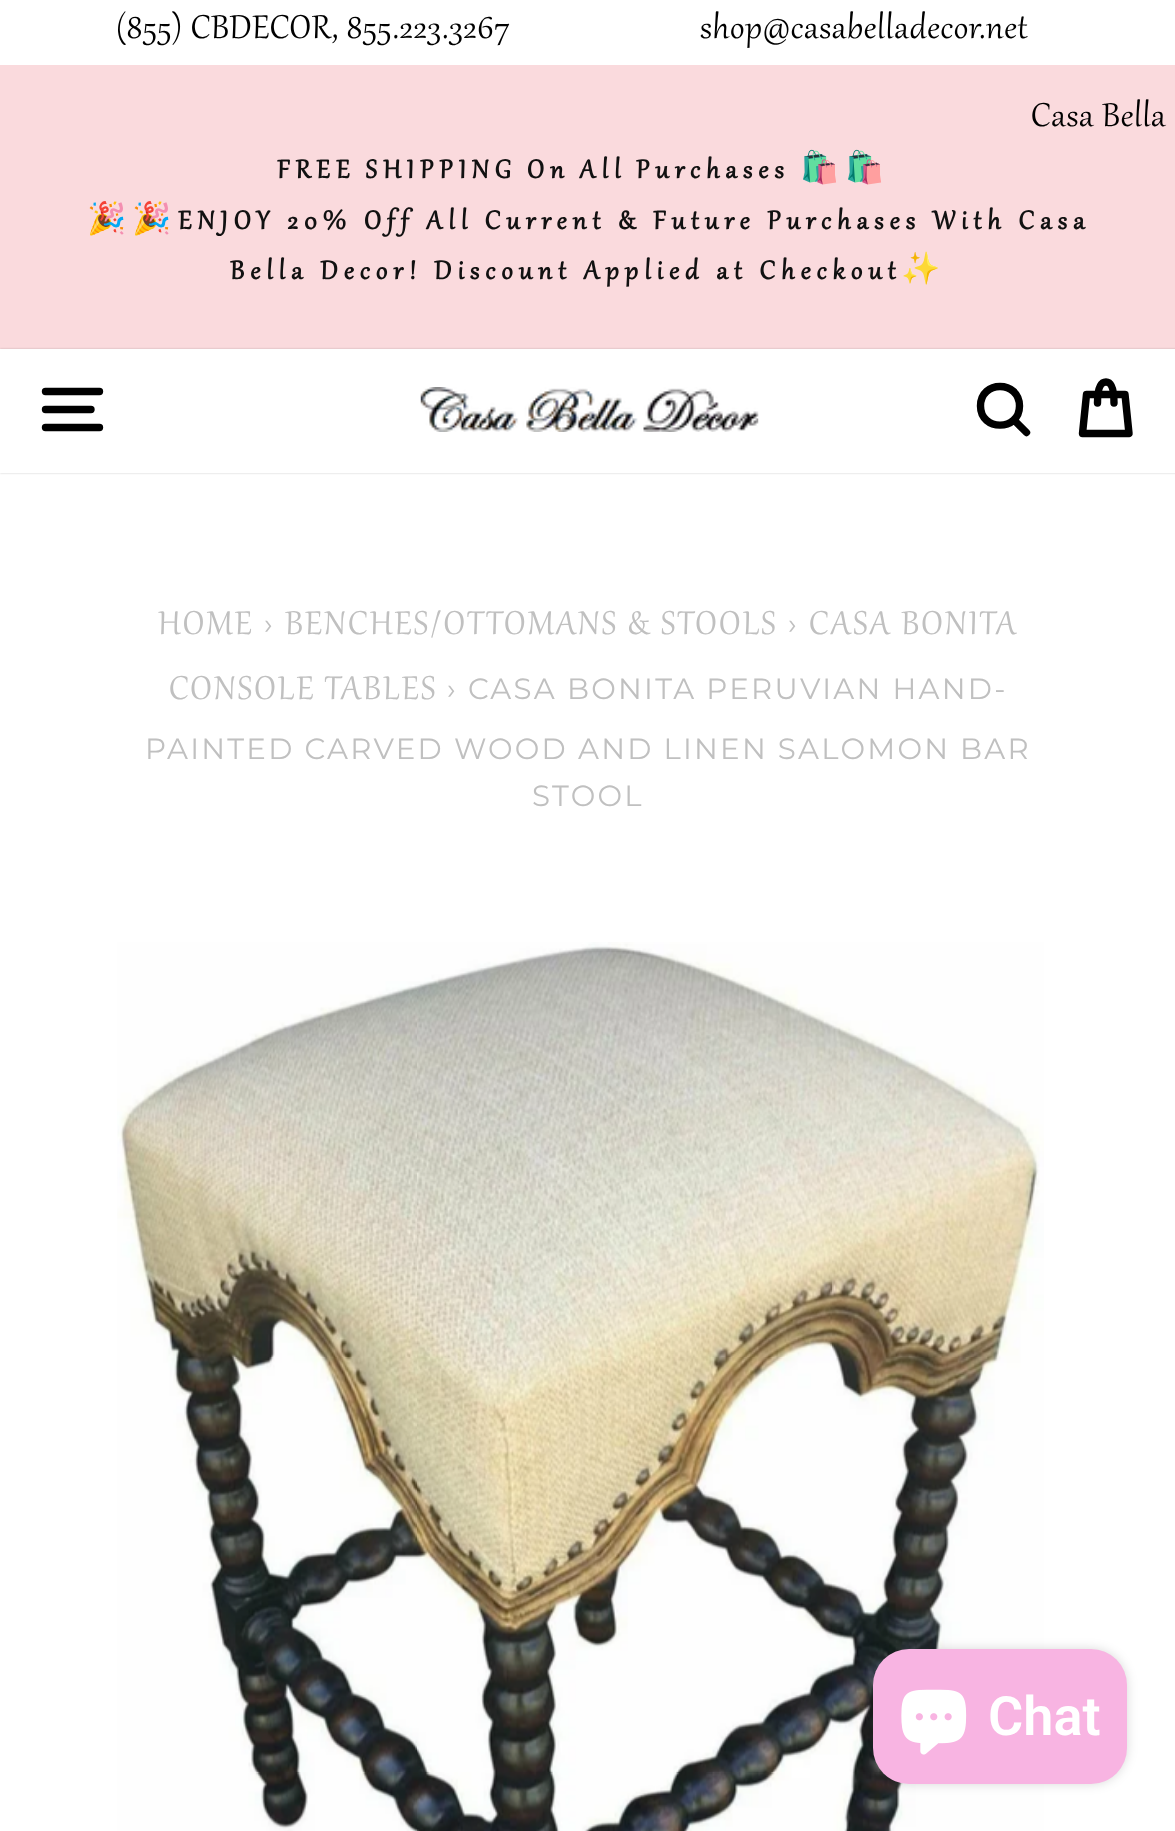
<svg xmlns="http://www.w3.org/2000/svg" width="1175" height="1831">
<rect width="100%" height="100%" fill="#fff"/>
<text x="116" y="38" style="font-family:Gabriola;font-size:40.5px;letter-spacing:0.75px;fill:#000">(855) CBDECOR, 855.223.3267</text>
<text x="700" y="38" style="font-family:Gabriola;font-size:40.5px;letter-spacing:0.75px;fill:#000">shop@casabelladecor.net</text>
<rect y="65" width="1175" height="284" fill="#fadadd"/>
<text x="1031" y="126" style="font-family:Gabriola;font-size:40.5px;letter-spacing:0.75px;fill:#000">Casa Bella</text>
<text x="277" y="178" word-spacing="-2" style="font-family:Gabriola;font-size:31.5px;font-weight:bold;letter-spacing:6.3px;fill:#111">FREE SHIPPING On All Purchases</text>
<text x="800" y="178" style="font-family:Noto Color Emoji;font-size:31.5px;font-weight:bold;letter-spacing:6.3px;fill:#111">🛍️🛍️</text>
<text x="87" y="229" style="font-family:Noto Color Emoji;font-size:31.5px;font-weight:bold;letter-spacing:6.3px;fill:#111">🎉🎉</text>
<text x="178" y="229" style="font-family:Gabriola;font-size:31.5px;font-weight:bold;letter-spacing:6.3px;fill:#111">ENJOY 20% Off All Current &amp; Future Purchases With Casa</text>
<text x="230" y="279" style="font-family:Gabriola;font-size:31.5px;font-weight:bold;letter-spacing:6.3px;fill:#111">Bella Decor! Discount Applied at Checkout</text>
<text x="901" y="279" style="font-family:Noto Color Emoji;font-size:31.5px;font-weight:bold;letter-spacing:6.3px;fill:#111">✨</text>
<rect y="349" width="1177" height="124" fill="#00000033" filter="blur(1px)"/>
<rect y="349" width="1175" height="124" fill="#fff"/>
<path d="M45.5 391.5h54m-54 18h45.5m-45.5 18h54" fill="none" stroke="#000" stroke-width="7.4" stroke-linecap="round" stroke-linejoin="round"/>
<image x="420" y="387" width="339" height="45" href="media/1.png"/>
<path d="M1019.5 406c0 25.5-39 25.5-39 0c0-26 39-26 39 0zm7 26.5l-12.5-12.5" fill="none" stroke="#000" stroke-width="7.4" stroke-linecap="round" stroke-linejoin="round"/>
<path d="M1097.5 403c0-16.5 3.5-21 8.5-21c4.5 0 8 4.5 8 21m-27.5-8.5h38.5l4 39h-46.5z" fill="none" stroke="#000" stroke-width="7.4" stroke-linecap="round" stroke-linejoin="round"/>
<text x="158" y="634" style="font-family:Gabriola;font-size:40.5px;letter-spacing:2.25px;fill:#c0c0c0">HOME</text>
<text x="264" y="634" style="font-family:Montserrat;font-size:29.25px;letter-spacing:2.25px;fill:#c0c0c0">›</text>
<text x="285" y="634" style="font-family:Gabriola;font-size:40.5px;letter-spacing:2.25px;fill:#c0c0c0">BENCHES/OTTOMANS &amp; STOOLS</text>
<text x="788" y="634" style="font-family:Montserrat;font-size:29.25px;letter-spacing:2.25px;fill:#c0c0c0">›</text>
<text x="809" y="634" style="font-family:Gabriola;font-size:40.5px;letter-spacing:2.25px;fill:#c0c0c0">CASA BONITA</text>
<text x="169" y="699" style="font-family:Gabriola;font-size:40.5px;letter-spacing:2.25px;fill:#c0c0c0">CONSOLE TABLES</text>
<text x="447" y="699" style="font-family:Montserrat;font-size:29.25px;letter-spacing:2.25px;fill:#c0c0c0">› CASA BONITA PERUVIAN HAND-</text>
<text x="145" y="759" style="font-family:Montserrat;font-size:29.25px;letter-spacing:2.25px;fill:#c0c0c0">PAINTED CARVED WOOD AND LINEN SALOMON BAR</text>
<text x="532" y="806" style="font-family:Montserrat;font-size:29.25px;letter-spacing:2.25px;fill:#c0c0c0">STOOL</text>
<image x="117" y="942" width="927" height="889" href="media/2.png"/>
<rect x="873" y="1649" width="254" height="135" rx="36" fill="#00000026" filter="blur(5.5px)"/>
<rect x="873" y="1649" width="254" height="135" rx="36" fill="#f8b4e2"/>
<image x="901" y="1689" width="66" height="66" href="media/3.png"/>
<text x="988" y="1735" style="font-family:Roboto;font-size:54px;font-weight:600;fill:#fff">Chat</text>
</svg>
